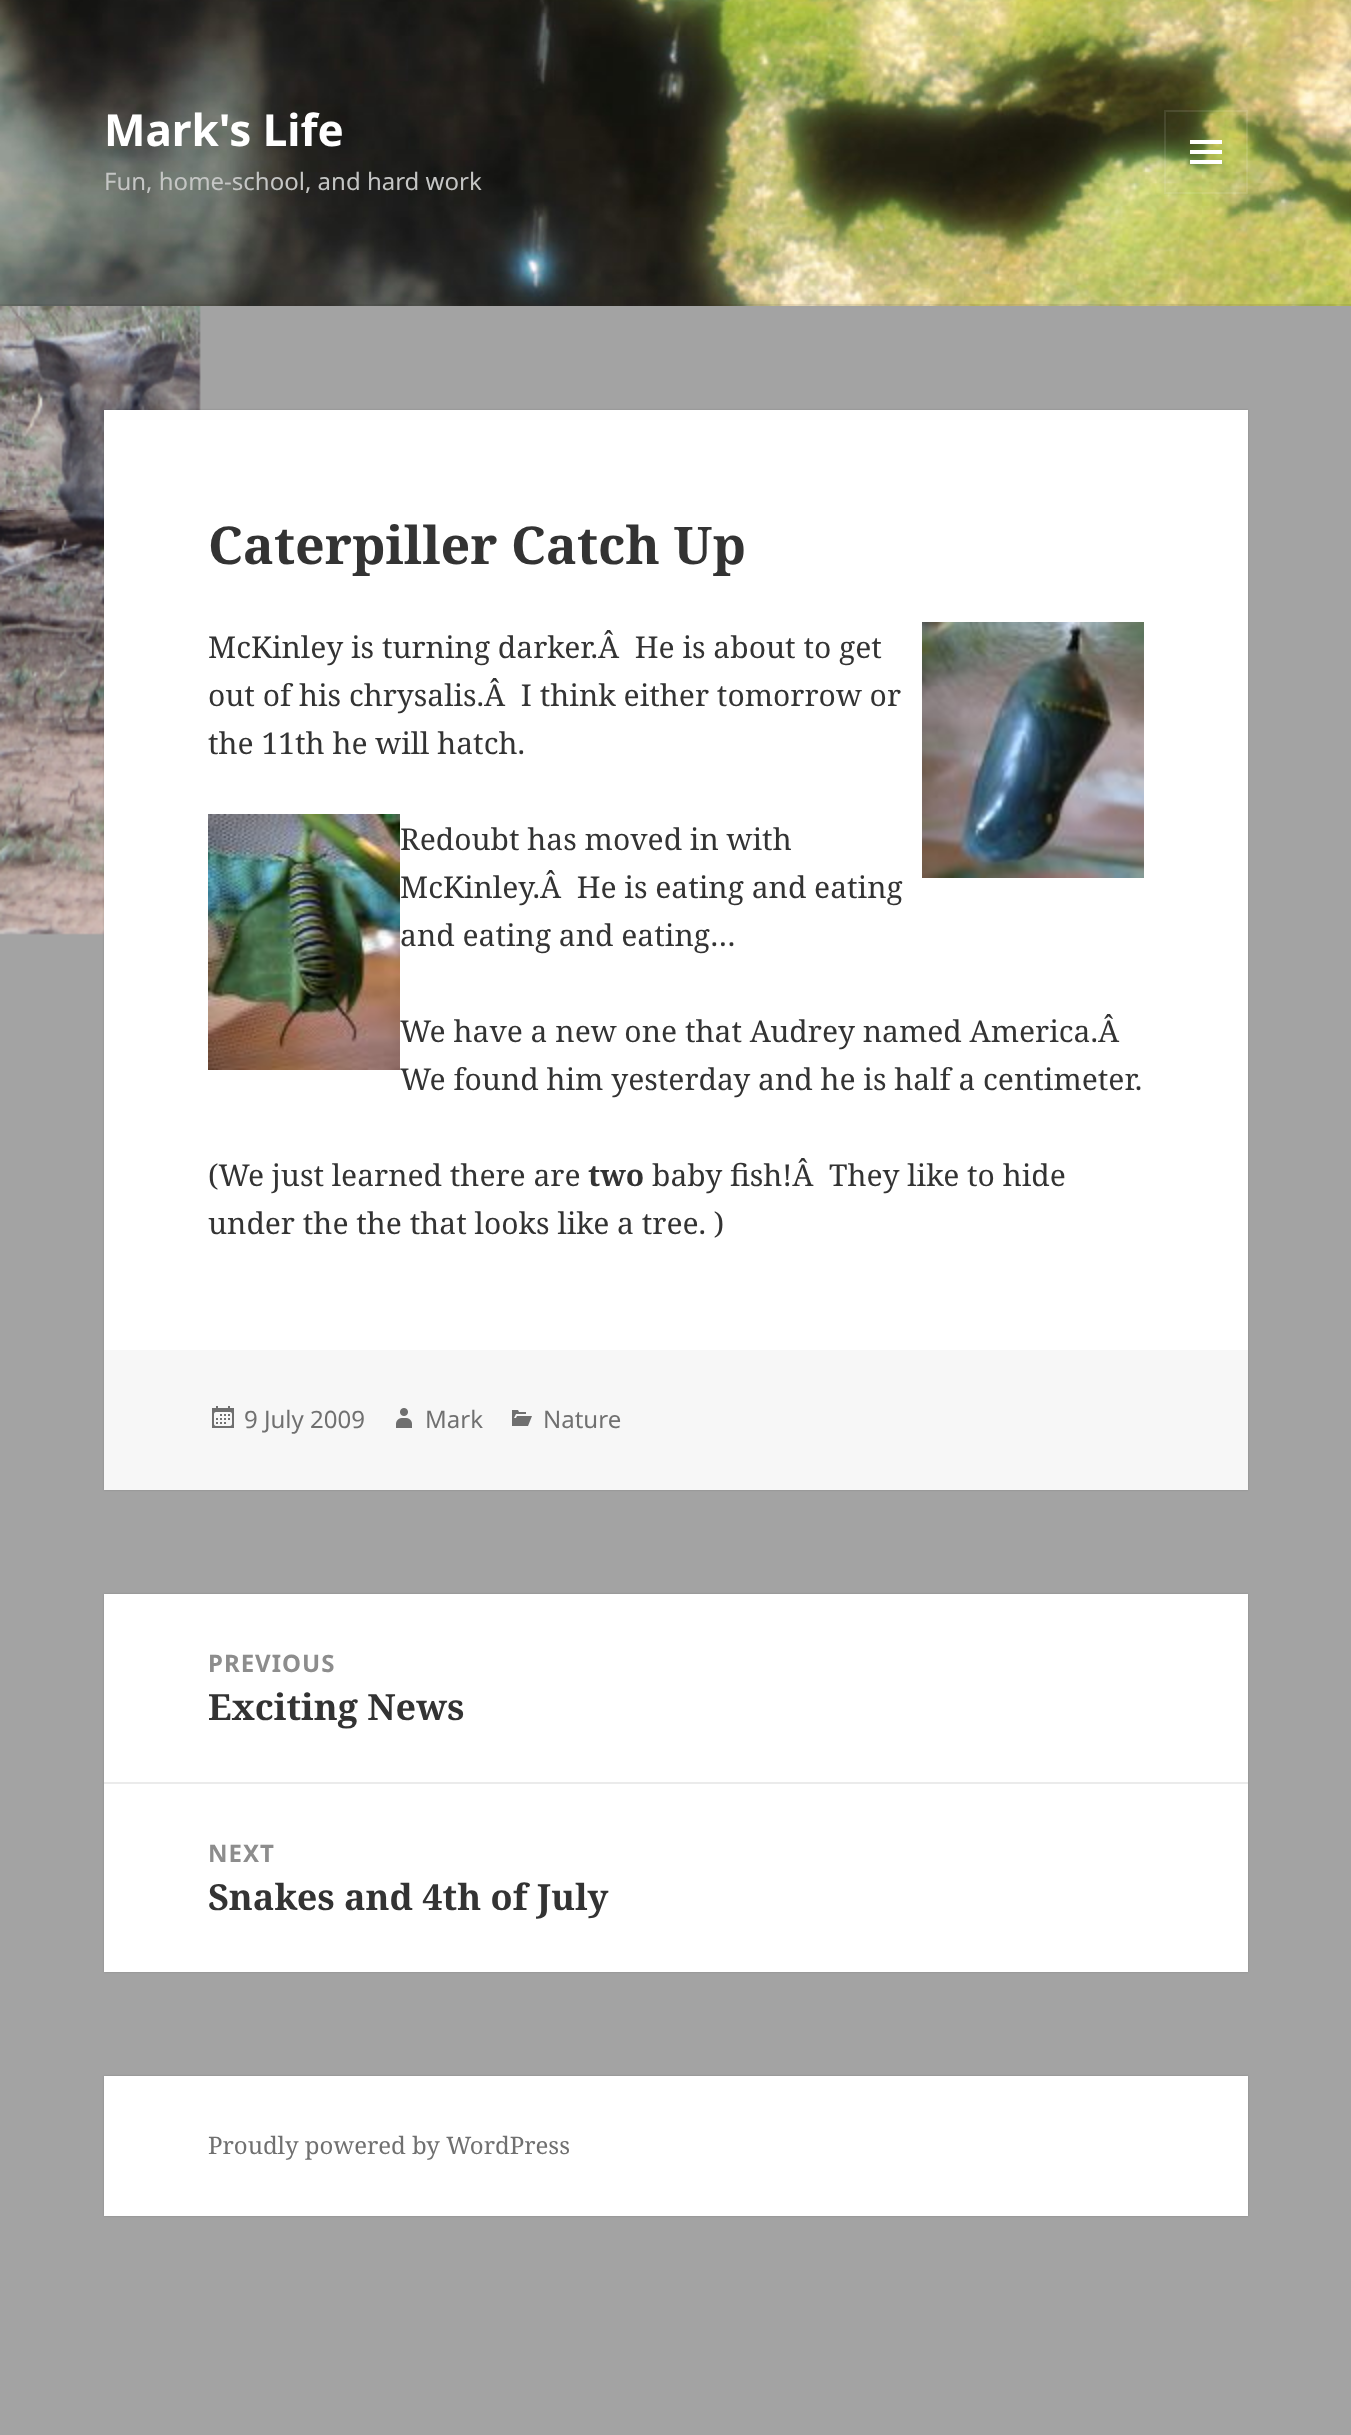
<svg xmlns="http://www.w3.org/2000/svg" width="1351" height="2435">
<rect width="100%" height="100%" fill="#a3a3a3"/>
<image x="0" y="306" width="201" height="629" href="media/1.png"/>
<image x="0" y="0" width="1351" height="306" href="media/2.png"/>
<rect y="304" width="1351" height="2" fill="#3333331a"/>
<text x="104" y="146" style="font-family:Noto Sans;font-size:44px;font-weight:bold;fill:#fff">Mark's Life</text>
<rect x="1165" y="111" width="82" height="82" fill="none" stroke="#ffffff1a" stroke-width="2"/>
<image x="1190" y="140" width="32" height="24" href="media/3.png"/>
<text x="104" y="190" style="font-family:Noto Sans;font-size:24px;fill:#c5c6c5">Fun, home-school, and hard work</text>
<rect x="104" y="410" width="1144" height="1080" fill="#00000026" filter="blur(1px)"/>
<rect x="104" y="410" width="1144" height="940" fill="#fff"/>
<text x="208" y="564" style="font-family:Noto Serif;font-size:52px;font-weight:bold;fill:#333">Caterpiller Catch Up</text>
<text x="208" y="658" style="font-family:Noto Serif;font-size:30px;fill:#333" xml:space="preserve">McKinley is turning darker.Â  He is about to get</text>
<image x="922" y="622" width="222" height="256" href="media/4.png"/>
<text x="208" y="706" style="font-family:Noto Serif;font-size:30px;fill:#333" xml:space="preserve">out of his chrysalis.Â  I think either tomorrow or</text>
<text x="208" y="754" style="font-family:Noto Serif;font-size:30px;fill:#333">the 11th he will hatch.</text>
<image x="208" y="814" width="192" height="256" href="media/5.png"/>
<text x="400" y="850" style="font-family:Noto Serif;font-size:30px;fill:#333">Redoubt has moved in with</text>
<text x="400" y="898" style="font-family:Noto Serif;font-size:30px;fill:#333" xml:space="preserve">McKinley.Â  He is eating and eating</text>
<text x="400" y="946" style="font-family:Noto Serif;font-size:30px;fill:#333">and eating and eating…</text>
<text x="400" y="1042" style="font-family:Noto Serif;font-size:30px;fill:#333">We have a new one that Audrey named America.Â</text>
<text x="400" y="1090" style="font-family:Noto Serif;font-size:30px;fill:#333">We found him yesterday and he is half a centimeter.</text>
<text x="208" y="1186" style="font-family:Noto Serif;font-size:30px;fill:#333">(We just learned there are</text>
<text x="588" y="1186" style="font-family:Noto Serif;font-size:30px;font-weight:bold;fill:#333">two</text>
<text x="652" y="1186" style="font-family:Noto Serif;font-size:30px;fill:#333" xml:space="preserve">baby fish!Â  They like to hide</text>
<text x="208" y="1234" style="font-family:Noto Serif;font-size:30px;fill:#333">under the the that looks like a tree. )</text>
<rect x="104" y="1350" width="1144" height="140" fill="#f7f7f7"/>
<image x="212" y="1406" width="22" height="22" href="media/6.png"/>
<text x="244" y="1428" style="font-family:Noto Sans;font-size:24px;fill:#707070">9 July 2009</text>
<image x="396" y="1408" width="16" height="20" href="media/7.png"/>
<text x="425" y="1428" style="font-family:Noto Sans;font-size:24px;fill:#707070">Mark</text>
<image x="512" y="1410" width="20" height="16" href="media/8.png"/>
<text x="543" y="1428" style="font-family:Noto Sans;font-size:24px;fill:#707070">Nature</text>
<rect x="104" y="1594" width="1144" height="378" fill="#00000026" filter="blur(1px)"/>
<rect x="104" y="1594" width="1144" height="378" fill="#fff"/>
<text x="208" y="1672" style="font-family:Noto Sans;font-size:24px;font-weight:bold;letter-spacing:1px;fill:#8d8d8d">PREVIOUS</text>
<text x="208" y="1720" style="font-family:Noto Serif;font-size:36px;font-weight:bold;fill:#333">Exciting News</text>
<rect x="104" y="1782" width="1144" height="2" fill="#ebebeb"/>
<text x="208" y="1862" style="font-family:Noto Sans;font-size:24px;font-weight:bold;letter-spacing:1px;fill:#8d8d8d">NEXT</text>
<text x="208" y="1910" style="font-family:Noto Serif;font-size:36px;font-weight:bold;fill:#333">Snakes and 4th of July</text>
<rect x="104" y="2076" width="1144" height="140" fill="#00000026" filter="blur(1px)"/>
<rect x="104" y="2076" width="1144" height="140" fill="#fff"/>
<text x="208" y="2154" style="font-family:Noto Serif;font-size:24px;fill:#707070">Proudly powered by WordPress</text>
</svg>
